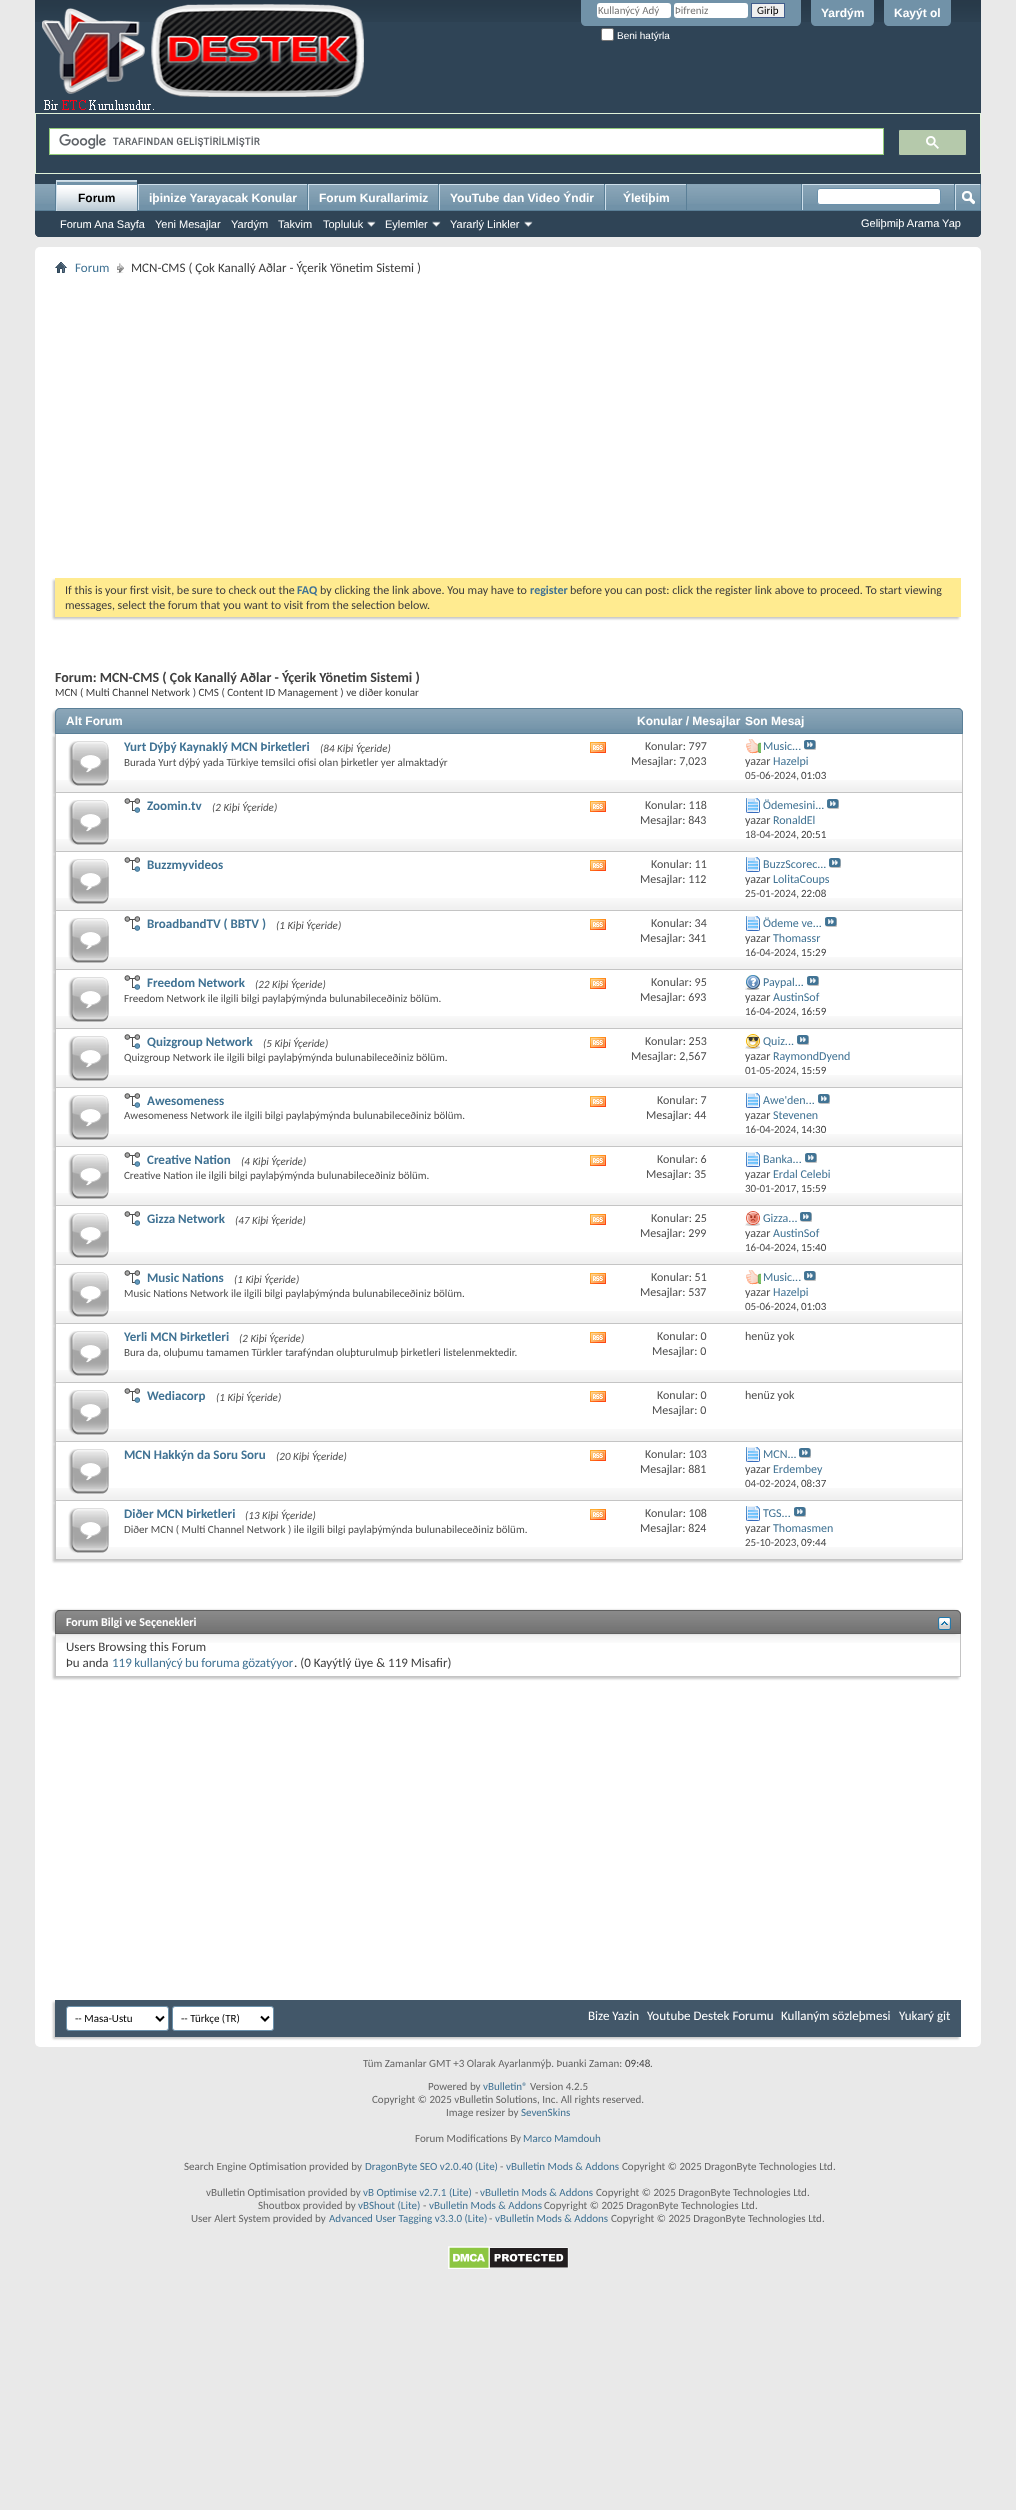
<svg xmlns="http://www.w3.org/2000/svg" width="1016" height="2510">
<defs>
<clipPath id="clip1"><path d="M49 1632h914v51h-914zm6 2h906v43h-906z" clip-rule="evenodd"/></clipPath>
</defs>
<rect width="100%" height="100%" fill="#e9e9e9"/>
<path d="M35 0h946v232c0 3-2 5-5 5h-936c-3 0-5-2-5-5z" fill="#2f4456"/>
<image x="35" y="0" width="946" height="22" href="media/1.png"/>
<image x="42" y="4" width="322" height="106" href="media/2.png"/>
<path d="M581 0h220v21c0 3-2 5-5 5h-210c-3 0-5-2-5-5z" fill="#7192a8"/>
<rect x="597" y="3" width="74" height="15" rx="3" fill="#fff"/>
<text x="598" y="14" style="font-family:Carlito;font-size:11px;fill:#777">Kullanýcý Adý</text>
<rect x="674" y="3" width="74" height="15" rx="3" fill="#fff"/>
<text x="675" y="14" style="font-family:Carlito;font-size:11px;fill:#777">Þifreniz</text>
<rect x="751.5" y="3.5" width="33" height="14" fill="#efefef" stroke="#415d8d"/>
<text x="757" y="14" style="font-family:Carlito;font-size:11px;fill:#000">Giriþ</text>
<rect x="601.5" y="28.5" width="12" height="12" rx="1.5" fill="#fff" stroke="#767676"/>
<text x="617" y="39" style="font-family:Liberation Sans;font-size:10px;fill:#fff">Beni hatýrla</text>
<path d="M811 0h63v21c0 3-2 5-5 5h-53c-3 0-5-2-5-5z" fill="#7192a8"/>
<text x="821" y="17" style="font-family:Liberation Sans;font-size:12px;font-weight:bold;fill:#fff">Yardým</text>
<path d="M884 0h67v21c0 3-2 5-5 5h-57c-3 0-5-2-5-5z" fill="#7192a8"/>
<text x="894" y="17" style="font-family:Liberation Sans;font-size:12px;font-weight:bold;fill:#fff">Kayýt ol</text>
<rect x="35.5" y="113.5" width="945" height="60" fill="none" stroke="#e1f3da"/>
<rect x="49.5" y="128.5" width="834" height="26" fill="#fff" stroke="#94cc7a"/>
<image x="59" y="134" width="201" height="15" href="media/3.png"/>
<rect x="898.5" y="129.5" width="68" height="26" rx="1.5" fill="#b5c9ab" stroke="#2f4456"/>
<image x="926" y="136" width="13" height="13" href="media/4.png"/>
<path d="M35 184h946v48c0 3-2 5-5 5h-936c-3 0-5-2-5-5z" fill="#2f4456"/>
<rect x="35" y="184" width="945" height="26" fill="#7192a8"/>
<image x="35" y="184" width="945" height="20" href="media/5.png"/>
<rect x="137" y="184" width="1" height="26" fill="#5a7f97"/>
<rect x="55" y="184" width="1" height="26" fill="#5a7f97"/>
<rect x="307" y="184" width="1" height="27" fill="#5a7f97"/>
<rect x="138" y="184" width="169" height="1" fill="#cedfeb"/>
<rect x="138" y="184" width="1" height="27" fill="#cedfeb"/>
<rect x="438" y="184" width="1" height="27" fill="#5a7f97"/>
<rect x="308" y="184" width="130" height="1" fill="#cedfeb"/>
<rect x="308" y="184" width="1" height="27" fill="#cedfeb"/>
<rect x="604" y="184" width="1" height="27" fill="#5a7f97"/>
<rect x="439" y="184" width="165" height="1" fill="#cedfeb"/>
<rect x="439" y="184" width="1" height="27" fill="#cedfeb"/>
<rect x="686" y="184" width="1" height="27" fill="#5a7f97"/>
<rect x="605" y="184" width="81" height="1" fill="#cedfeb"/>
<rect x="605" y="184" width="1" height="27" fill="#cedfeb"/>
<rect x="35" y="210" width="946" height="1" fill="#5a7f97"/>
<rect x="57" y="181" width="80" height="30" fill="#7192a8"/>
<image x="57" y="181" width="80" height="30" href="media/6.png"/>
<rect x="56" y="180" width="81" height="1" fill="#cedfeb"/>
<rect x="56" y="180" width="1" height="31" fill="#cedfeb"/>
<text x="78" y="202" style="font-family:Liberation Sans;font-size:12px;font-weight:bold;fill:#000">Forum</text>
<rect x="139" y="185" width="168" height="19" fill="#7192a8"/>
<image x="139" y="185" width="168" height="20" href="media/7.png"/>
<text x="149" y="202" style="font-family:Liberation Sans;font-size:12px;font-weight:bold;fill:#fff">iþinize Yarayacak Konular</text>
<rect x="309" y="185" width="129" height="19" fill="#7192a8"/>
<image x="309" y="185" width="129" height="20" href="media/8.png"/>
<text x="319" y="202" style="font-family:Liberation Sans;font-size:12px;font-weight:bold;fill:#fff">Forum Kurallarimiz</text>
<rect x="440" y="185" width="164" height="19" fill="#7192a8"/>
<image x="440" y="185" width="164" height="20" href="media/9.png"/>
<text x="450" y="202" style="font-family:Liberation Sans;font-size:12px;font-weight:bold;fill:#fff">YouTube dan Video Ýndir</text>
<rect x="606" y="185" width="80" height="19" fill="#7192a8"/>
<image x="606" y="185" width="80" height="20" href="media/10.png"/>
<text x="623" y="202" style="font-family:Liberation Sans;font-size:12px;font-weight:bold;fill:#fff">Ýletiþim</text>
<text x="60" y="228" style="font-family:Liberation Sans;font-size:11px;fill:#fff">Forum Ana Sayfa</text>
<text x="155" y="228" style="font-family:Liberation Sans;font-size:11px;fill:#fff">Yeni Mesajlar</text>
<text x="231" y="228" style="font-family:Liberation Sans;font-size:11px;fill:#fff">Yardým</text>
<text x="278" y="228" style="font-family:Liberation Sans;font-size:11px;fill:#fff">Takvim</text>
<text x="323" y="228" style="font-family:Liberation Sans;font-size:11px;fill:#fff">Topluluk</text>
<image x="367" y="221" width="9" height="6" href="media/11.png"/>
<text x="385" y="228" style="font-family:Liberation Sans;font-size:11px;fill:#fff">Eylemler</text>
<image x="432" y="221" width="9" height="6" href="media/11.png"/>
<text x="450" y="228" style="font-family:Liberation Sans;font-size:11px;fill:#fff">Yararlý Linkler</text>
<image x="524" y="221" width="9" height="6" href="media/11.png"/>
<rect x="801" y="184" width="1" height="26" fill="#5a7f97"/>
<rect x="802" y="184" width="152" height="1" fill="#cedfeb"/>
<rect x="802" y="184" width="1" height="26" fill="#cedfeb"/>
<rect x="817.5" y="188.5" width="123" height="16" rx="2.5" fill="#fff" stroke="#6b91ab"/>
<rect x="980" y="184" width="1" height="26" fill="#5a7f97"/>
<rect x="954" y="184" width="1" height="26" fill="#5a7f97"/>
<rect x="955" y="184" width="25" height="1" fill="#cedfeb"/>
<rect x="955" y="184" width="1" height="26" fill="#cedfeb"/>
<image x="962" y="191" width="13" height="14" href="media/12.png"/>
<text x="861" y="227" style="font-family:Liberation Sans;font-size:11px;fill:#fff">Geliþmiþ Arama Yap</text>
<rect x="35" y="247" width="946" height="1800" rx="5" fill="#fff"/>
<image x="55" y="262" width="12" height="11" href="media/13.png"/>
<image x="117" y="263" width="7" height="10" href="media/14.png"/>
<text x="75" y="272" style="font-family:Carlito;font-size:13px;fill:#417394">Forum</text>
<text x="131" y="272" style="font-family:Carlito;font-size:13px;fill:#3e3e3e">MCN-CMS ( Çok Kanallý Aðlar - Ýçerik Yönetim Sistemi )</text>
<rect x="53" y="580" width="906" height="39" fill="#c8c8c8" filter="blur(1px)"/>
<rect x="55" y="578" width="906" height="39" fill="#ffeb90"/>
<text x="65" y="594" style="font-family:Carlito;font-size:12px;fill:#3e3e3e">If this is your first visit, be sure to check out the</text>
<text x="297" y="594" style="font-family:Carlito;font-size:12px;font-weight:bold;fill:#417394">FAQ</text>
<text x="320" y="594" style="font-family:Carlito;font-size:12px;fill:#3e3e3e">by clicking the link above. You may have to</text>
<text x="530" y="594" style="font-family:Carlito;font-size:12px;font-weight:bold;fill:#417394">register</text>
<text x="570" y="594" style="font-family:Carlito;font-size:12px;fill:#3e3e3e">before you can post: click the register link above to proceed. To start viewing</text>
<text x="65" y="609" style="font-family:Carlito;font-size:12px;fill:#3e3e3e">messages, select the forum that you want to visit from the selection below.</text>
<text x="55" y="682" style="font-family:Carlito;font-size:14px;font-weight:bold;fill:#3e3e3e">Forum: MCN-CMS ( Çok Kanallý Aðlar - Ýçerik Yönetim Sistemi )</text>
<text x="55" y="696" style="font-family:Carlito;font-size:11.05px;fill:#3e3e3e">MCN ( Multi Channel Network ) CMS ( Content ID Management ) ve diðer konular</text>
<rect x="53" y="710" width="908" height="26" rx="5" fill="#c8c8c8" filter="blur(1px)"/>
<path d="M60 708h898c3 0 5 2 5 5v21h-908v-21c0-3 2-5 5-5z" fill="#7192a8"/>
<image x="55" y="709" width="908" height="20" href="media/15.png"/>
<path d="M60 708.5h898c2.5 0 4.5 2 4.5 4.5v20.5h-907v-20.5c0-2.5 2-4.5 4.5-4.5z" fill="none" stroke="#5a7f97"/>
<text x="66" y="725" style="font-family:Liberation Sans;font-size:12px;font-weight:bold;fill:#fff">Alt Forum</text>
<text x="637" y="725" style="font-family:Liberation Sans;font-size:12px;font-weight:bold;fill:#fff">Konular / Mesajlar</text>
<text x="745" y="725" style="font-family:Liberation Sans;font-size:12px;font-weight:bold;fill:#fff">Son Mesaj</text>
<rect x="53" y="736" width="908" height="59" fill="#c8c8c8" filter="blur(1px)"/>
<rect x="56" y="734" width="906" height="58" fill="#fff"/>
<image x="56" y="780" width="906" height="12" href="media/16.png"/>
<rect x="962" y="734" width="1" height="59" fill="#c4c4c4"/>
<rect x="55" y="792" width="908" height="1" fill="#c4c4c4"/>
<rect x="55" y="734" width="1" height="59" fill="#c4c4c4"/>
<image x="68" y="741" width="41" height="45" href="media/17.png"/>
<text x="124" y="751" style="font-family:Carlito;font-size:13px;font-weight:bold;fill:#417394">Yurt Dýþý Kaynaklý MCN Þirketleri</text>
<text x="320" y="752" style="font-family:Carlito;font-size:11px;font-style:italic;fill:#4e4e4e">(84 Kiþi Ýçeride)</text>
<text x="124" y="766" style="font-family:Carlito;font-size:11px;fill:#4e4e4e">Burada Yurt dýþý yada Türkiye temsilci ofisi olan þirketler yer almaktadýr</text>
<image x="590" y="742" width="16" height="11" href="media/18.png"/>
<text x="645" y="750" style="font-family:Carlito;font-size:12px;fill:#4e4e4e">Konular: 797</text>
<text x="631" y="765" style="font-family:Carlito;font-size:12px;fill:#4e4e4e">Mesajlar: 7,023</text>
<image x="746" y="739" width="15" height="15" href="media/19.png"/>
<text x="763" y="750" style="font-family:Carlito;font-size:12px;fill:#417394">Music...</text>
<image x="804" y="740" width="12" height="10" href="media/20.png"/>
<text x="745" y="765" style="font-family:Carlito;font-size:12px;fill:#4e4e4e">yazar</text>
<text x="773" y="765" style="font-family:Carlito;font-size:12px;fill:#417394">Hazelpi</text>
<text x="745" y="779" style="font-family:Carlito;font-size:11px;fill:#4e4e4e">05-06-2024,</text>
<text x="801" y="779" style="font-family:Carlito;font-size:11px;fill:#3e3e3e">01:03</text>
<rect x="53" y="795" width="908" height="59" fill="#c8c8c8" filter="blur(1px)"/>
<rect x="56" y="793" width="906" height="58" fill="#fff"/>
<image x="56" y="839" width="906" height="12" href="media/16.png"/>
<rect x="962" y="793" width="1" height="59" fill="#c4c4c4"/>
<rect x="55" y="851" width="908" height="1" fill="#c4c4c4"/>
<rect x="55" y="793" width="1" height="59" fill="#c4c4c4"/>
<image x="68" y="800" width="41" height="45" href="media/17.png"/>
<image x="124" y="798" width="16" height="15" href="media/21.png"/>
<text x="147" y="810" style="font-family:Carlito;font-size:13px;font-weight:bold;fill:#417394">Zoomin.tv</text>
<text x="212" y="811" style="font-family:Carlito;font-size:11px;font-style:italic;fill:#4e4e4e">(2 Kiþi Ýçeride)</text>
<image x="590" y="801" width="16" height="11" href="media/18.png"/>
<text x="645" y="809" style="font-family:Carlito;font-size:12px;fill:#4e4e4e">Konular: 118</text>
<text x="640" y="824" style="font-family:Carlito;font-size:12px;fill:#4e4e4e">Mesajlar: 843</text>
<image x="746" y="798" width="14" height="15" href="media/22.png"/>
<text x="763" y="809" style="font-family:Carlito;font-size:12px;fill:#417394">Ödemesini...</text>
<image x="827" y="799" width="12" height="10" href="media/20.png"/>
<text x="745" y="824" style="font-family:Carlito;font-size:12px;fill:#4e4e4e">yazar</text>
<text x="773" y="824" style="font-family:Carlito;font-size:12px;fill:#417394">RonaldEl</text>
<text x="745" y="838" style="font-family:Carlito;font-size:11px;fill:#4e4e4e">18-04-2024,</text>
<text x="801" y="838" style="font-family:Carlito;font-size:11px;fill:#3e3e3e">20:51</text>
<rect x="53" y="854" width="908" height="59" fill="#c8c8c8" filter="blur(1px)"/>
<rect x="56" y="852" width="906" height="58" fill="#fff"/>
<image x="56" y="898" width="906" height="12" href="media/16.png"/>
<rect x="962" y="852" width="1" height="59" fill="#c4c4c4"/>
<rect x="55" y="910" width="908" height="1" fill="#c4c4c4"/>
<rect x="55" y="852" width="1" height="59" fill="#c4c4c4"/>
<image x="68" y="859" width="41" height="45" href="media/17.png"/>
<image x="124" y="857" width="16" height="15" href="media/21.png"/>
<text x="147" y="869" style="font-family:Carlito;font-size:13px;font-weight:bold;fill:#417394">Buzzmyvideos</text>
<image x="590" y="860" width="16" height="11" href="media/18.png"/>
<text x="651" y="868" style="font-family:Carlito;font-size:12px;fill:#4e4e4e">Konular: 11</text>
<text x="640" y="883" style="font-family:Carlito;font-size:12px;fill:#4e4e4e">Mesajlar: 112</text>
<image x="746" y="857" width="14" height="15" href="media/22.png"/>
<text x="763" y="868" style="font-family:Carlito;font-size:12px;fill:#417394">BuzzScorec...</text>
<image x="829" y="858" width="12" height="10" href="media/20.png"/>
<text x="745" y="883" style="font-family:Carlito;font-size:12px;fill:#4e4e4e">yazar</text>
<text x="773" y="883" style="font-family:Carlito;font-size:12px;fill:#417394">LolitaCoups</text>
<text x="745" y="897" style="font-family:Carlito;font-size:11px;fill:#4e4e4e">25-01-2024,</text>
<text x="801" y="897" style="font-family:Carlito;font-size:11px;fill:#3e3e3e">22:08</text>
<rect x="53" y="913" width="908" height="59" fill="#c8c8c8" filter="blur(1px)"/>
<rect x="56" y="911" width="906" height="58" fill="#fff"/>
<image x="56" y="957" width="906" height="12" href="media/16.png"/>
<rect x="962" y="911" width="1" height="59" fill="#c4c4c4"/>
<rect x="55" y="969" width="908" height="1" fill="#c4c4c4"/>
<rect x="55" y="911" width="1" height="59" fill="#c4c4c4"/>
<image x="68" y="918" width="41" height="45" href="media/17.png"/>
<image x="124" y="916" width="16" height="15" href="media/21.png"/>
<text x="147" y="928" style="font-family:Carlito;font-size:13px;font-weight:bold;fill:#417394">BroadbandTV ( BBTV )</text>
<text x="276" y="929" style="font-family:Carlito;font-size:11px;font-style:italic;fill:#4e4e4e">(1 Kiþi Ýçeride)</text>
<image x="590" y="919" width="16" height="11" href="media/18.png"/>
<text x="651" y="927" style="font-family:Carlito;font-size:12px;fill:#4e4e4e">Konular: 34</text>
<text x="640" y="942" style="font-family:Carlito;font-size:12px;fill:#4e4e4e">Mesajlar: 341</text>
<image x="746" y="916" width="14" height="15" href="media/22.png"/>
<text x="763" y="927" style="font-family:Carlito;font-size:12px;fill:#417394">Ödeme ve...</text>
<image x="825" y="917" width="12" height="10" href="media/20.png"/>
<text x="745" y="942" style="font-family:Carlito;font-size:12px;fill:#4e4e4e">yazar</text>
<text x="773" y="942" style="font-family:Carlito;font-size:12px;fill:#417394">Thomassr</text>
<text x="745" y="956" style="font-family:Carlito;font-size:11px;fill:#4e4e4e">16-04-2024,</text>
<text x="801" y="956" style="font-family:Carlito;font-size:11px;fill:#3e3e3e">15:29</text>
<rect x="53" y="972" width="908" height="59" fill="#c8c8c8" filter="blur(1px)"/>
<rect x="56" y="970" width="906" height="58" fill="#fff"/>
<image x="56" y="1016" width="906" height="12" href="media/16.png"/>
<rect x="962" y="970" width="1" height="59" fill="#c4c4c4"/>
<rect x="55" y="1028" width="908" height="1" fill="#c4c4c4"/>
<rect x="55" y="970" width="1" height="59" fill="#c4c4c4"/>
<image x="68" y="977" width="41" height="45" href="media/17.png"/>
<image x="124" y="975" width="16" height="15" href="media/21.png"/>
<text x="147" y="987" style="font-family:Carlito;font-size:13px;font-weight:bold;fill:#417394">Freedom Network</text>
<text x="255" y="988" style="font-family:Carlito;font-size:11px;font-style:italic;fill:#4e4e4e">(22 Kiþi Ýçeride)</text>
<text x="124" y="1002" style="font-family:Carlito;font-size:11px;fill:#4e4e4e">Freedom Network ile ilgili bilgi paylaþýmýnda bulunabileceðiniz bölüm.</text>
<image x="590" y="978" width="16" height="11" href="media/18.png"/>
<text x="651" y="986" style="font-family:Carlito;font-size:12px;fill:#4e4e4e">Konular: 95</text>
<text x="640" y="1001" style="font-family:Carlito;font-size:12px;fill:#4e4e4e">Mesajlar: 693</text>
<image x="745" y="975" width="15" height="15" href="media/23.png"/>
<text x="763" y="986" style="font-family:Carlito;font-size:12px;fill:#417394">Paypal...</text>
<image x="807" y="976" width="12" height="10" href="media/20.png"/>
<text x="745" y="1001" style="font-family:Carlito;font-size:12px;fill:#4e4e4e">yazar</text>
<text x="773" y="1001" style="font-family:Carlito;font-size:12px;fill:#417394">AustinSof</text>
<text x="745" y="1015" style="font-family:Carlito;font-size:11px;fill:#4e4e4e">16-04-2024,</text>
<text x="801" y="1015" style="font-family:Carlito;font-size:11px;fill:#3e3e3e">16:59</text>
<rect x="53" y="1031" width="908" height="59" fill="#c8c8c8" filter="blur(1px)"/>
<rect x="56" y="1029" width="906" height="58" fill="#fff"/>
<image x="56" y="1075" width="906" height="12" href="media/16.png"/>
<rect x="962" y="1029" width="1" height="59" fill="#c4c4c4"/>
<rect x="55" y="1087" width="908" height="1" fill="#c4c4c4"/>
<rect x="55" y="1029" width="1" height="59" fill="#c4c4c4"/>
<image x="68" y="1036" width="41" height="45" href="media/17.png"/>
<image x="124" y="1034" width="16" height="15" href="media/21.png"/>
<text x="147" y="1046" style="font-family:Carlito;font-size:13px;font-weight:bold;fill:#417394">Quizgroup Network</text>
<text x="263" y="1047" style="font-family:Carlito;font-size:11px;font-style:italic;fill:#4e4e4e">(5 Kiþi Ýçeride)</text>
<text x="124" y="1061" style="font-family:Carlito;font-size:11px;fill:#4e4e4e">Quizgroup Network ile ilgili bilgi paylaþýmýnda bulunabileceðiniz bölüm.</text>
<image x="590" y="1037" width="16" height="11" href="media/18.png"/>
<text x="645" y="1045" style="font-family:Carlito;font-size:12px;fill:#4e4e4e">Konular: 253</text>
<text x="631" y="1060" style="font-family:Carlito;font-size:12px;fill:#4e4e4e">Mesajlar: 2,567</text>
<image x="745" y="1034" width="15" height="15" href="media/24.png"/>
<text x="763" y="1045" style="font-family:Carlito;font-size:12px;fill:#417394">Quiz...</text>
<image x="797" y="1035" width="12" height="10" href="media/20.png"/>
<text x="745" y="1060" style="font-family:Carlito;font-size:12px;fill:#4e4e4e">yazar</text>
<text x="773" y="1060" style="font-family:Carlito;font-size:12px;fill:#417394">RaymondDyend</text>
<text x="745" y="1074" style="font-family:Carlito;font-size:11px;fill:#4e4e4e">01-05-2024,</text>
<text x="801" y="1074" style="font-family:Carlito;font-size:11px;fill:#3e3e3e">15:59</text>
<rect x="53" y="1090" width="908" height="59" fill="#c8c8c8" filter="blur(1px)"/>
<rect x="56" y="1088" width="906" height="58" fill="#fff"/>
<image x="56" y="1134" width="906" height="12" href="media/16.png"/>
<rect x="962" y="1088" width="1" height="59" fill="#c4c4c4"/>
<rect x="55" y="1146" width="908" height="1" fill="#c4c4c4"/>
<rect x="55" y="1088" width="1" height="59" fill="#c4c4c4"/>
<image x="68" y="1095" width="41" height="45" href="media/17.png"/>
<image x="124" y="1093" width="16" height="15" href="media/21.png"/>
<text x="147" y="1105" style="font-family:Carlito;font-size:13px;font-weight:bold;fill:#417394">Awesomeness</text>
<text x="124" y="1119" style="font-family:Carlito;font-size:11px;fill:#4e4e4e">Awesomeness Network ile ilgili bilgi paylaþýmýnda bulunabileceðiniz bölüm.</text>
<image x="590" y="1096" width="16" height="11" href="media/18.png"/>
<text x="657" y="1104" style="font-family:Carlito;font-size:12px;fill:#4e4e4e">Konular: 7</text>
<text x="646" y="1119" style="font-family:Carlito;font-size:12px;fill:#4e4e4e">Mesajlar: 44</text>
<image x="746" y="1093" width="14" height="15" href="media/22.png"/>
<text x="763" y="1104" style="font-family:Carlito;font-size:12px;fill:#417394">Awe'den...</text>
<image x="818" y="1094" width="12" height="10" href="media/20.png"/>
<text x="745" y="1119" style="font-family:Carlito;font-size:12px;fill:#4e4e4e">yazar</text>
<text x="773" y="1119" style="font-family:Carlito;font-size:12px;fill:#417394">Stevenen</text>
<text x="745" y="1133" style="font-family:Carlito;font-size:11px;fill:#4e4e4e">16-04-2024,</text>
<text x="801" y="1133" style="font-family:Carlito;font-size:11px;fill:#3e3e3e">14:30</text>
<rect x="53" y="1149" width="908" height="59" fill="#c8c8c8" filter="blur(1px)"/>
<rect x="56" y="1147" width="906" height="58" fill="#fff"/>
<image x="56" y="1193" width="906" height="12" href="media/16.png"/>
<rect x="962" y="1147" width="1" height="59" fill="#c4c4c4"/>
<rect x="55" y="1205" width="908" height="1" fill="#c4c4c4"/>
<rect x="55" y="1147" width="1" height="59" fill="#c4c4c4"/>
<image x="68" y="1154" width="41" height="45" href="media/17.png"/>
<image x="124" y="1152" width="16" height="15" href="media/21.png"/>
<text x="147" y="1164" style="font-family:Carlito;font-size:13px;font-weight:bold;fill:#417394">Creative Nation</text>
<text x="241" y="1165" style="font-family:Carlito;font-size:11px;font-style:italic;fill:#4e4e4e">(4 Kiþi Ýçeride)</text>
<text x="124" y="1179" style="font-family:Carlito;font-size:11px;fill:#4e4e4e">Creative Nation ile ilgili bilgi paylaþýmýnda bulunabileceðiniz bölüm.</text>
<image x="590" y="1155" width="16" height="11" href="media/18.png"/>
<text x="657" y="1163" style="font-family:Carlito;font-size:12px;fill:#4e4e4e">Konular: 6</text>
<text x="646" y="1178" style="font-family:Carlito;font-size:12px;fill:#4e4e4e">Mesajlar: 35</text>
<image x="746" y="1152" width="14" height="15" href="media/22.png"/>
<text x="763" y="1163" style="font-family:Carlito;font-size:12px;fill:#417394">Banka...</text>
<image x="805" y="1153" width="12" height="10" href="media/20.png"/>
<text x="745" y="1178" style="font-family:Carlito;font-size:12px;fill:#4e4e4e">yazar</text>
<text x="773" y="1178" style="font-family:Carlito;font-size:12px;fill:#417394">Erdal Celebi</text>
<text x="745" y="1192" style="font-family:Carlito;font-size:11px;fill:#4e4e4e">30-01-2017,</text>
<text x="801" y="1192" style="font-family:Carlito;font-size:11px;fill:#3e3e3e">15:59</text>
<rect x="53" y="1208" width="908" height="59" fill="#c8c8c8" filter="blur(1px)"/>
<rect x="56" y="1206" width="906" height="58" fill="#fff"/>
<image x="56" y="1252" width="906" height="12" href="media/16.png"/>
<rect x="962" y="1206" width="1" height="59" fill="#c4c4c4"/>
<rect x="55" y="1264" width="908" height="1" fill="#c4c4c4"/>
<rect x="55" y="1206" width="1" height="59" fill="#c4c4c4"/>
<image x="68" y="1213" width="41" height="45" href="media/17.png"/>
<image x="124" y="1211" width="16" height="15" href="media/21.png"/>
<text x="147" y="1223" style="font-family:Carlito;font-size:13px;font-weight:bold;fill:#417394">Gizza Network</text>
<text x="235" y="1224" style="font-family:Carlito;font-size:11px;font-style:italic;fill:#4e4e4e">(47 Kiþi Ýçeride)</text>
<image x="590" y="1214" width="16" height="11" href="media/18.png"/>
<text x="651" y="1222" style="font-family:Carlito;font-size:12px;fill:#4e4e4e">Konular: 25</text>
<text x="640" y="1237" style="font-family:Carlito;font-size:12px;fill:#4e4e4e">Mesajlar: 299</text>
<image x="745" y="1211" width="15" height="15" href="media/25.png"/>
<text x="763" y="1222" style="font-family:Carlito;font-size:12px;fill:#417394">Gizza...</text>
<image x="800" y="1212" width="12" height="10" href="media/20.png"/>
<text x="745" y="1237" style="font-family:Carlito;font-size:12px;fill:#4e4e4e">yazar</text>
<text x="773" y="1237" style="font-family:Carlito;font-size:12px;fill:#417394">AustinSof</text>
<text x="745" y="1251" style="font-family:Carlito;font-size:11px;fill:#4e4e4e">16-04-2024,</text>
<text x="801" y="1251" style="font-family:Carlito;font-size:11px;fill:#3e3e3e">15:40</text>
<rect x="53" y="1267" width="908" height="59" fill="#c8c8c8" filter="blur(1px)"/>
<rect x="56" y="1265" width="906" height="58" fill="#fff"/>
<image x="56" y="1311" width="906" height="12" href="media/16.png"/>
<rect x="962" y="1265" width="1" height="59" fill="#c4c4c4"/>
<rect x="55" y="1323" width="908" height="1" fill="#c4c4c4"/>
<rect x="55" y="1265" width="1" height="59" fill="#c4c4c4"/>
<image x="68" y="1272" width="41" height="45" href="media/17.png"/>
<image x="124" y="1270" width="16" height="15" href="media/21.png"/>
<text x="147" y="1282" style="font-family:Carlito;font-size:13px;font-weight:bold;fill:#417394">Music Nations</text>
<text x="234" y="1283" style="font-family:Carlito;font-size:11px;font-style:italic;fill:#4e4e4e">(1 Kiþi Ýçeride)</text>
<text x="124" y="1297" style="font-family:Carlito;font-size:11px;fill:#4e4e4e">Music Nations Network ile ilgili bilgi paylaþýmýnda bulunabileceðiniz bölüm.</text>
<image x="590" y="1273" width="16" height="11" href="media/18.png"/>
<text x="651" y="1281" style="font-family:Carlito;font-size:12px;fill:#4e4e4e">Konular: 51</text>
<text x="640" y="1296" style="font-family:Carlito;font-size:12px;fill:#4e4e4e">Mesajlar: 537</text>
<image x="746" y="1270" width="15" height="15" href="media/19.png"/>
<text x="763" y="1281" style="font-family:Carlito;font-size:12px;fill:#417394">Music...</text>
<image x="804" y="1271" width="12" height="10" href="media/20.png"/>
<text x="745" y="1296" style="font-family:Carlito;font-size:12px;fill:#4e4e4e">yazar</text>
<text x="773" y="1296" style="font-family:Carlito;font-size:12px;fill:#417394">Hazelpi</text>
<text x="745" y="1310" style="font-family:Carlito;font-size:11px;fill:#4e4e4e">05-06-2024,</text>
<text x="801" y="1310" style="font-family:Carlito;font-size:11px;fill:#3e3e3e">01:03</text>
<rect x="53" y="1326" width="908" height="59" fill="#c8c8c8" filter="blur(1px)"/>
<rect x="56" y="1324" width="906" height="58" fill="#fff"/>
<image x="56" y="1370" width="906" height="12" href="media/16.png"/>
<rect x="962" y="1324" width="1" height="59" fill="#c4c4c4"/>
<rect x="55" y="1382" width="908" height="1" fill="#c4c4c4"/>
<rect x="55" y="1324" width="1" height="59" fill="#c4c4c4"/>
<image x="68" y="1331" width="41" height="45" href="media/17.png"/>
<text x="124" y="1341" style="font-family:Carlito;font-size:13px;font-weight:bold;fill:#417394">Yerli MCN Þirketleri</text>
<text x="239" y="1342" style="font-family:Carlito;font-size:11px;font-style:italic;fill:#4e4e4e">(2 Kiþi Ýçeride)</text>
<text x="124" y="1356" style="font-family:Carlito;font-size:11px;fill:#4e4e4e">Bura da, oluþumu tamamen Türkler tarafýndan oluþturulmuþ þirketleri listelenmektedir.</text>
<image x="590" y="1332" width="16" height="11" href="media/18.png"/>
<text x="657" y="1340" style="font-family:Carlito;font-size:12px;fill:#4e4e4e">Konular: 0</text>
<text x="652" y="1355" style="font-family:Carlito;font-size:12px;fill:#4e4e4e">Mesajlar: 0</text>
<text x="745" y="1340" style="font-family:Carlito;font-size:12px;fill:#4e4e4e">henüz yok</text>
<rect x="53" y="1385" width="908" height="59" fill="#c8c8c8" filter="blur(1px)"/>
<rect x="56" y="1383" width="906" height="58" fill="#fff"/>
<image x="56" y="1429" width="906" height="12" href="media/16.png"/>
<rect x="962" y="1383" width="1" height="59" fill="#c4c4c4"/>
<rect x="55" y="1441" width="908" height="1" fill="#c4c4c4"/>
<rect x="55" y="1383" width="1" height="59" fill="#c4c4c4"/>
<image x="68" y="1390" width="41" height="45" href="media/17.png"/>
<image x="124" y="1388" width="16" height="15" href="media/21.png"/>
<text x="147" y="1400" style="font-family:Carlito;font-size:13px;font-weight:bold;fill:#417394">Wediacorp</text>
<text x="216" y="1401" style="font-family:Carlito;font-size:11px;font-style:italic;fill:#4e4e4e">(1 Kiþi Ýçeride)</text>
<image x="590" y="1391" width="16" height="11" href="media/18.png"/>
<text x="657" y="1399" style="font-family:Carlito;font-size:12px;fill:#4e4e4e">Konular: 0</text>
<text x="652" y="1414" style="font-family:Carlito;font-size:12px;fill:#4e4e4e">Mesajlar: 0</text>
<text x="745" y="1399" style="font-family:Carlito;font-size:12px;fill:#4e4e4e">henüz yok</text>
<rect x="53" y="1444" width="908" height="59" fill="#c8c8c8" filter="blur(1px)"/>
<rect x="56" y="1442" width="906" height="58" fill="#fff"/>
<image x="56" y="1488" width="906" height="12" href="media/16.png"/>
<rect x="962" y="1442" width="1" height="59" fill="#c4c4c4"/>
<rect x="55" y="1500" width="908" height="1" fill="#c4c4c4"/>
<rect x="55" y="1442" width="1" height="59" fill="#c4c4c4"/>
<image x="68" y="1449" width="41" height="45" href="media/17.png"/>
<text x="124" y="1459" style="font-family:Carlito;font-size:13px;font-weight:bold;fill:#417394">MCN Hakkýn da Soru Soru</text>
<text x="276" y="1460" style="font-family:Carlito;font-size:11px;font-style:italic;fill:#4e4e4e">(20 Kiþi Ýçeride)</text>
<image x="590" y="1450" width="16" height="11" href="media/18.png"/>
<text x="645" y="1458" style="font-family:Carlito;font-size:12px;fill:#4e4e4e">Konular: 103</text>
<text x="640" y="1473" style="font-family:Carlito;font-size:12px;fill:#4e4e4e">Mesajlar: 881</text>
<image x="746" y="1447" width="14" height="15" href="media/22.png"/>
<text x="763" y="1458" style="font-family:Carlito;font-size:12px;fill:#417394">MCN...</text>
<image x="799" y="1448" width="12" height="10" href="media/20.png"/>
<text x="745" y="1473" style="font-family:Carlito;font-size:12px;fill:#4e4e4e">yazar</text>
<text x="773" y="1473" style="font-family:Carlito;font-size:12px;fill:#417394">Erdembey</text>
<text x="745" y="1487" style="font-family:Carlito;font-size:11px;fill:#4e4e4e">04-02-2024,</text>
<text x="801" y="1487" style="font-family:Carlito;font-size:11px;fill:#3e3e3e">08:37</text>
<rect x="53" y="1503" width="908" height="59" fill="#c8c8c8" filter="blur(1px)"/>
<rect x="56" y="1501" width="906" height="58" fill="#fff"/>
<image x="56" y="1547" width="906" height="12" href="media/16.png"/>
<rect x="962" y="1501" width="1" height="59" fill="#c4c4c4"/>
<rect x="55" y="1559" width="908" height="1" fill="#c4c4c4"/>
<rect x="55" y="1501" width="1" height="59" fill="#c4c4c4"/>
<image x="68" y="1508" width="41" height="45" href="media/17.png"/>
<text x="124" y="1518" style="font-family:Carlito;font-size:13px;font-weight:bold;fill:#417394">Diðer MCN Þirketleri</text>
<text x="245" y="1519" style="font-family:Carlito;font-size:11px;font-style:italic;fill:#4e4e4e">(13 Kiþi Ýçeride)</text>
<text x="124" y="1533" style="font-family:Carlito;font-size:11px;fill:#4e4e4e">Diðer MCN ( Multi Channel Network ) ile ilgili bilgi paylaþýmýnda bulunabileceðiniz bölüm.</text>
<image x="590" y="1509" width="16" height="11" href="media/18.png"/>
<text x="645" y="1517" style="font-family:Carlito;font-size:12px;fill:#4e4e4e">Konular: 108</text>
<text x="640" y="1532" style="font-family:Carlito;font-size:12px;fill:#4e4e4e">Mesajlar: 824</text>
<image x="746" y="1506" width="14" height="15" href="media/22.png"/>
<text x="763" y="1517" style="font-family:Carlito;font-size:12px;fill:#417394">TGS...</text>
<image x="794" y="1507" width="12" height="10" href="media/20.png"/>
<text x="745" y="1532" style="font-family:Carlito;font-size:12px;fill:#4e4e4e">yazar</text>
<text x="773" y="1532" style="font-family:Carlito;font-size:12px;fill:#417394">Thomasmen</text>
<text x="745" y="1546" style="font-family:Carlito;font-size:11px;fill:#4e4e4e">25-10-2023,</text>
<text x="801" y="1546" style="font-family:Carlito;font-size:11px;fill:#3e3e3e">09:44</text>
<g clip-path="url(#clip1)">
<rect x="53" y="1636" width="906" height="43" fill="#c8c8c8" filter="blur(1px)"/>
</g>
<image x="56" y="1634" width="904" height="9" href="media/28.png"/>
<rect x="960" y="1634" width="1" height="43" fill="#c4c4c4"/>
<rect x="55" y="1676" width="906" height="1" fill="#c4c4c4"/>
<rect x="55" y="1634" width="1" height="43" fill="#c4c4c4"/>
<rect x="53" y="1610" width="906" height="24" rx="5" fill="#c8c8c8" filter="blur(1px)"/>
<path d="M60 1610h896c3 0 5 2 5 5v19h-906v-19c0-3 2-5 5-5z" fill="#707070"/>
<image x="55" y="1611" width="906" height="20" href="media/26.png"/>
<path d="M60 1610.5h896c2.5 0 4.5 2 4.5 4.5v18.5h-905v-18.5c0-2.5 2-4.5 4.5-4.5z" fill="none" stroke="#606060"/>
<text x="66" y="1626" style="font-family:Carlito;font-size:12px;font-weight:bold;fill:#fff">Forum Bilgi ve Seçenekleri</text>
<image x="938" y="1617" width="13" height="13" href="media/27.png"/>
<text x="66" y="1651" style="font-family:Carlito;font-size:13px;fill:#3e3e3e">Users Browsing this Forum</text>
<text x="66" y="1667" style="font-family:Carlito;font-size:13px;fill:#3e3e3e">Þu anda</text>
<text x="112" y="1667" word-spacing="-0.5" style="font-family:Carlito;font-size:13px;fill:#417394">119 kullanýcý bu foruma gözatýyor</text>
<text x="294" y="1667" style="font-family:Carlito;font-size:13px;fill:#3e3e3e">. (0 Kayýtlý üye &amp; 119 Misafir)</text>
<rect x="53" y="2002" width="906" height="37" fill="#c8c8c8" filter="blur(1px)"/>
<rect x="55" y="2000" width="906" height="37" fill="#425769"/>
<rect x="66.5" y="2006.5" width="102" height="24" rx="2.5" fill="#fff" stroke="#6b91ab"/>
<path d="M156 2016.5l4 4l4-4" fill="none" stroke="#000" stroke-width="2"/>
<text x="75" y="2022" style="font-family:Carlito;font-size:11px;fill:#000">-- Masa-Ustu</text>
<rect x="172.5" y="2006.5" width="101" height="24" rx="2.5" fill="#fff" stroke="#6b91ab"/>
<path d="M261 2016.5l4 4l4-4" fill="none" stroke="#000" stroke-width="2"/>
<text x="181" y="2022" style="font-family:Carlito;font-size:11px;fill:#000">-- Türkçe (TR)</text>
<text x="588" y="2020" style="font-family:Carlito;font-size:13px;fill:#fff">Bize Yazin</text>
<text x="647" y="2020" style="font-family:Carlito;font-size:13px;fill:#fff">Youtube Destek Forumu</text>
<text x="781" y="2020" style="font-family:Carlito;font-size:13px;fill:#fff">Kullaným sözleþmesi</text>
<text x="899" y="2020" style="font-family:Carlito;font-size:13px;fill:#fff">Yukarý git</text>
<text x="363" y="2067" style="font-family:Carlito;font-size:11px;fill:#666">Tüm Zamanlar GMT +3 Olarak Ayarlanmýþ. Þuanki Zaman:</text>
<text x="625" y="2067" style="font-family:Carlito;font-size:11px;fill:#3e3e3e">09:48</text>
<text x="650" y="2067" style="font-family:Carlito;font-size:11px;fill:#666">.</text>
<text x="428" y="2090" style="font-family:Carlito;font-size:11px;fill:#666">Powered by</text>
<text x="483" y="2090" style="font-family:Carlito;font-size:11px;fill:#417394">vBulletin®</text>
<text x="530" y="2090" style="font-family:Carlito;font-size:11px;fill:#666">Version 4.2.5</text>
<text x="372" y="2103" style="font-family:Carlito;font-size:11px;fill:#666">Copyright © 2025 vBulletin Solutions, Inc. All rights reserved.</text>
<text x="446" y="2116" style="font-family:Carlito;font-size:11px;fill:#666">Image resizer by</text>
<text x="521" y="2116" style="font-family:Carlito;font-size:11px;fill:#417394">SevenSkins</text>
<text x="415" y="2142" style="font-family:Carlito;font-size:11px;fill:#666">Forum Modifications By</text>
<text x="523" y="2142" style="font-family:Carlito;font-size:11px;fill:#417394">Marco Mamdouh</text>
<text x="184" y="2170" style="font-family:Carlito;font-size:11px;fill:#666">Search Engine Optimisation provided by</text>
<text x="365" y="2170" style="font-family:Carlito;font-size:11px;fill:#417394">DragonByte SEO v2.0.40 (Lite)</text>
<text x="500" y="2170" style="font-family:Carlito;font-size:11px;fill:#666">-</text>
<text x="506" y="2170" style="font-family:Carlito;font-size:11px;fill:#417394">vBulletin Mods &amp; Addons</text>
<text x="622" y="2170" style="font-family:Carlito;font-size:11px;fill:#666">Copyright © 2025 DragonByte Technologies Ltd.</text>
<text x="206" y="2196" style="font-family:Carlito;font-size:11px;fill:#666">vBulletin Optimisation provided by</text>
<text x="363" y="2196" style="font-family:Carlito;font-size:11px;fill:#417394">vB Optimise v2.7.1 (Lite)</text>
<text x="475" y="2196" style="font-family:Carlito;font-size:11px;fill:#666">-</text>
<text x="480" y="2196" style="font-family:Carlito;font-size:11px;fill:#417394">vBulletin Mods &amp; Addons</text>
<text x="596" y="2196" style="font-family:Carlito;font-size:11px;fill:#666">Copyright © 2025 DragonByte Technologies Ltd.</text>
<text x="258" y="2209" style="font-family:Carlito;font-size:11px;fill:#666">Shoutbox provided by</text>
<text x="358" y="2209" style="font-family:Carlito;font-size:11px;fill:#417394">vBShout (Lite)</text>
<text x="423" y="2209" style="font-family:Carlito;font-size:11px;fill:#666">-</text>
<text x="429" y="2209" style="font-family:Carlito;font-size:11px;fill:#417394">vBulletin Mods &amp; Addons</text>
<text x="544" y="2209" style="font-family:Carlito;font-size:11px;fill:#666">Copyright © 2025 DragonByte Technologies Ltd.</text>
<text x="191" y="2222" style="font-family:Carlito;font-size:11px;fill:#666">User Alert System provided by</text>
<text x="329" y="2222" style="font-family:Carlito;font-size:11px;fill:#417394">Advanced User Tagging v3.3.0 (Lite)</text>
<text x="489" y="2222" style="font-family:Carlito;font-size:11px;fill:#666">-</text>
<text x="495" y="2222" style="font-family:Carlito;font-size:11px;fill:#417394">vBulletin Mods &amp; Addons</text>
<text x="611" y="2222" style="font-family:Carlito;font-size:11px;fill:#666">Copyright © 2025 DragonByte Technologies Ltd.</text>
<image x="448" y="2246" width="121" height="23" href="media/29.png"/>
</svg>
